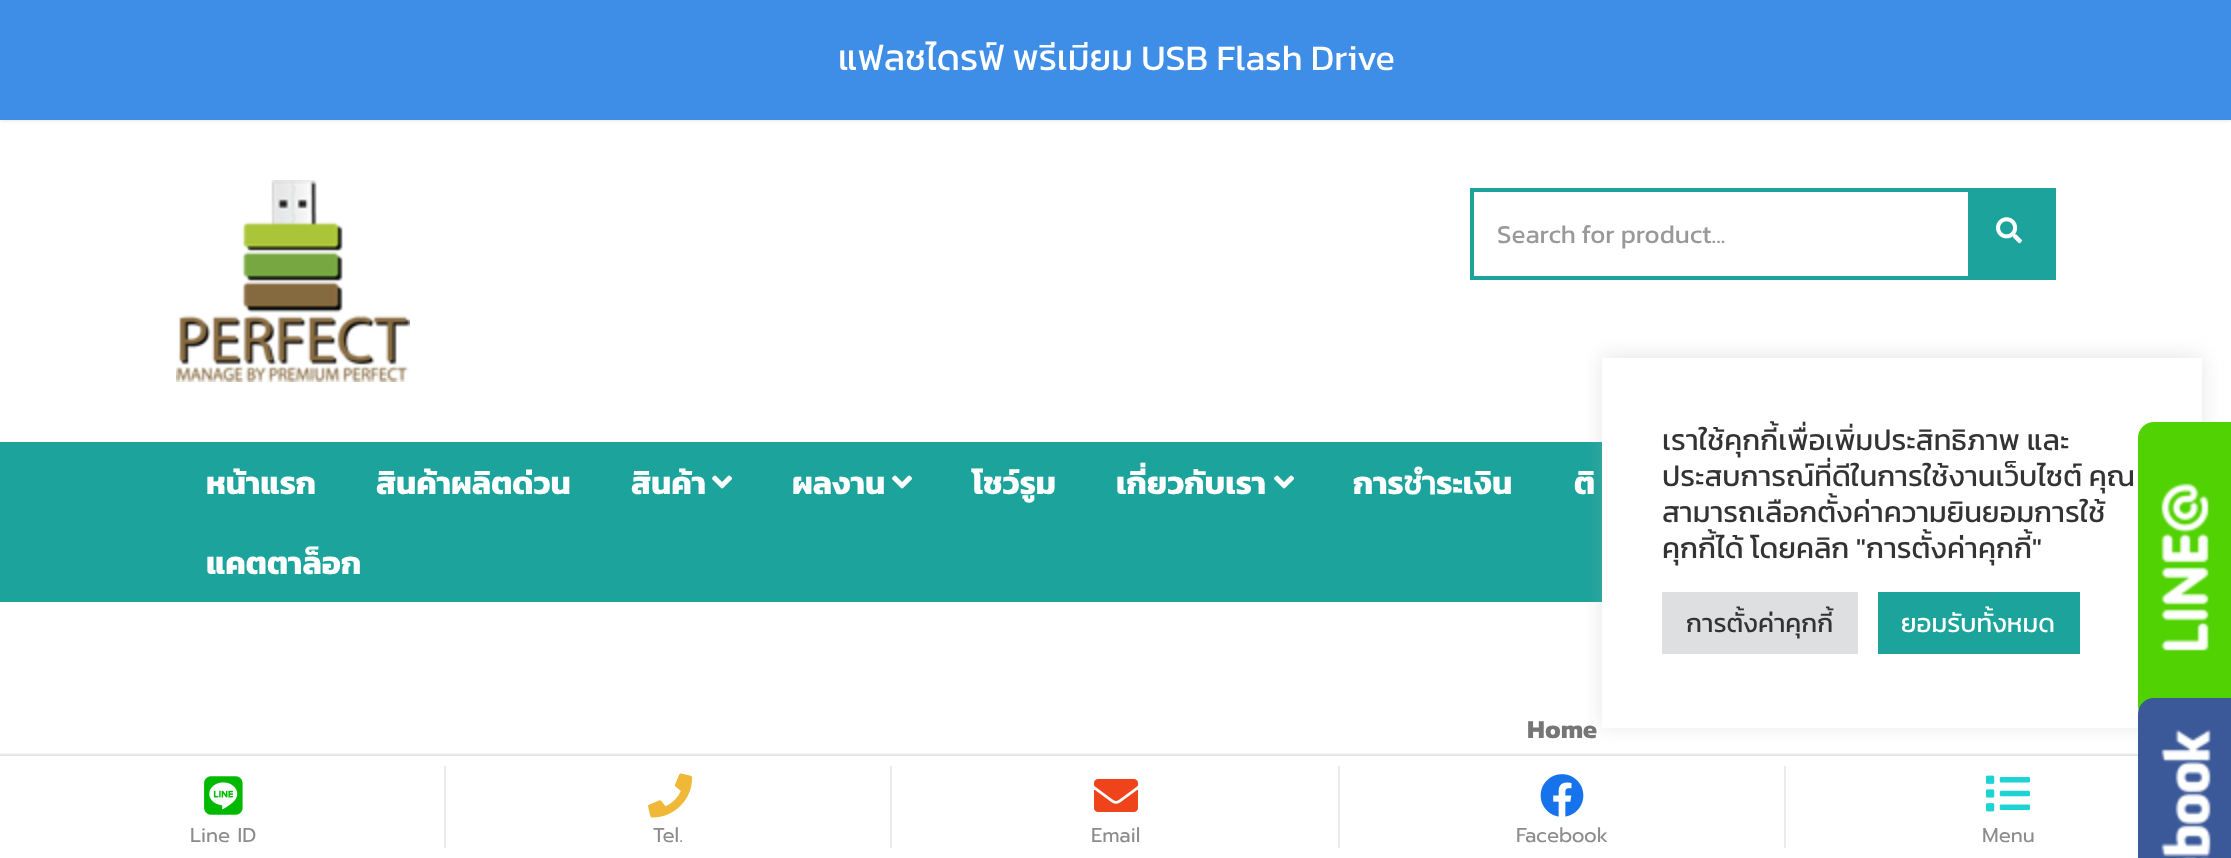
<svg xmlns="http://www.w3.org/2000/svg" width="2231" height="858">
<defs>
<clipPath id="clip1"><rect x="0" y="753" width="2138" height="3"/></clipPath>
</defs>
<rect width="100%" height="100%" fill="#fff"/>
<rect width="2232" height="120" fill="#00000024" filter="blur(2px)"/>
<rect width="2231" height="120" fill="#3e8ee8"/>
<text x="838" y="70" style="font-family:Kanit;font-size:36px;fill:#fff">แฟลชไดรฟ์ พรีเมียม USB Flash Drive</text>
<image x="176" y="180" width="234" height="202" href="media/1.png"/>
<rect x="1472" y="190" width="582" height="88" fill="none" stroke="#1ba39c" stroke-width="4"/>
<text x="1497" y="243" style="font-family:Kanit;font-size:26px;fill:#999">Search for product...</text>
<rect x="1968" y="192" width="84" height="84" fill="#1ba39c"/>
<image x="1996" y="217" width="26" height="27" href="media/2.png"/>
<rect y="442" width="1602" height="160" fill="#1ba39c"/>
<text x="206" y="494" style="font-family:Kanit;font-size:32px;font-weight:bold;fill:#fff">หน้าแรก</text>
<text x="376" y="494" style="font-family:Kanit;font-size:32px;font-weight:bold;fill:#fff">สินค้าผลิตด่วน</text>
<text x="631" y="494" style="font-family:Kanit;font-size:32px;font-weight:bold;fill:#fff">สินค้า</text>
<image x="712" y="475" width="20" height="14" href="media/3.png"/>
<text x="792" y="494" style="font-family:Kanit;font-size:32px;font-weight:bold;fill:#fff">ผลงาน</text>
<image x="892" y="475" width="20" height="14" href="media/3.png"/>
<text x="972" y="494" style="font-family:Kanit;font-size:32px;font-weight:bold;fill:#fff">โชว์รูม</text>
<text x="1116" y="494" style="font-family:Kanit;font-size:32px;font-weight:bold;fill:#fff">เกี่ยวกับเรา</text>
<image x="1274" y="475" width="20" height="14" href="media/3.png"/>
<text x="1353" y="494" style="font-family:Kanit;font-size:32px;font-weight:bold;fill:#fff">การชำระเงิน</text>
<text x="1574" y="494" style="font-family:Kanit;font-size:32px;font-weight:bold;fill:#fff">ติ</text>
<text x="206" y="574" style="font-family:Kanit;font-size:32px;font-weight:bold;fill:#fff">แคตตาล็อก</text>
<text x="1527" y="738" style="font-family:Kanit;font-size:26px;font-weight:bold;fill:#767676">Home</text>
<rect x="1602" y="356" width="600" height="370" fill="#acabab4d" filter="blur(10px)"/>
<rect x="1602" y="358" width="600" height="370" fill="#fff"/>
<text x="1662" y="450" style="font-family:Kanit;font-size:29.3px;fill:#333">เราใช้คุกกี้เพื่อเพิ่มประสิทธิภาพ และ</text>
<text x="1662" y="486" style="font-family:Kanit;font-size:29.3px;fill:#333">ประสบการณ์ที่ดีในการใช้งานเว็บไซต์ คุณ</text>
<text x="1662" y="522" style="font-family:Kanit;font-size:29.3px;fill:#333">สามารถเลือกตั้งค่าความยินยอมการใช้</text>
<text x="1662" y="558" style="font-family:Kanit;font-size:29.3px;fill:#333">คุกกี้ได้ โดยคลิก "การตั้งค่าคุกกี้"</text>
<rect x="1662" y="592" width="196" height="62" fill="#dedfe0"/>
<text x="1686" y="632" style="font-family:Kanit;font-size:26px;fill:#333">การตั้งค่าคุกกี้</text>
<rect x="1878" y="592" width="202" height="62" fill="#1ba39c"/>
<text x="1901" y="632" style="font-family:Kanit;font-size:26px;fill:#fff">ยอมรับทั้งหมด</text>
<path d="M2154 422h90v300h-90c-9 0-16-7-16-16v-268c0-9 7-16 16-16z" fill="#51d203"/>
<image x="2161" y="483" width="48" height="168" href="media/4.png"/>
<g clip-path="url(#clip1)">
<rect x="-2" y="754" width="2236" height="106" fill="#0000001f" filter="blur(1px)"/>
</g>
<image x="204" y="776" width="39" height="39" href="media/5.png"/>
<rect x="444" y="766" width="2" height="82" fill="#ebebeb"/>
<text x="190" y="842" style="font-family:Prompt;font-size:20px;fill:#8c8c8c">Line ID</text>
<image x="648" y="773" width="45" height="45" href="media/6.png"/>
<rect x="890" y="766" width="2" height="82" fill="#ebebeb"/>
<text x="653" y="842" style="font-family:Prompt;font-size:20px;fill:#8c8c8c">Tel.</text>
<image x="1094" y="779" width="44" height="33" href="media/7.png"/>
<rect x="1338" y="766" width="2" height="82" fill="#ebebeb"/>
<text x="1091" y="842" style="font-family:Prompt;font-size:20px;fill:#8c8c8c">Email</text>
<image x="1540" y="774" width="44" height="43" href="media/8.png"/>
<rect x="1784" y="766" width="2" height="82" fill="#ebebeb"/>
<text x="1516" y="842" style="font-family:Prompt;font-size:20px;fill:#8c8c8c">Facebook</text>
<image x="1986" y="775" width="44" height="37" href="media/9.png"/>
<text x="1982" y="842" style="font-family:Prompt;font-size:20px;fill:#8c8c8c">Menu</text>
<path d="M2154 698h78v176h-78c-9 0-16-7-16-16v-144c0-9 7-16 16-16z" fill="#3b5998"/>
<image x="2161" y="729" width="51" height="129" href="media/10.png"/>
</svg>
